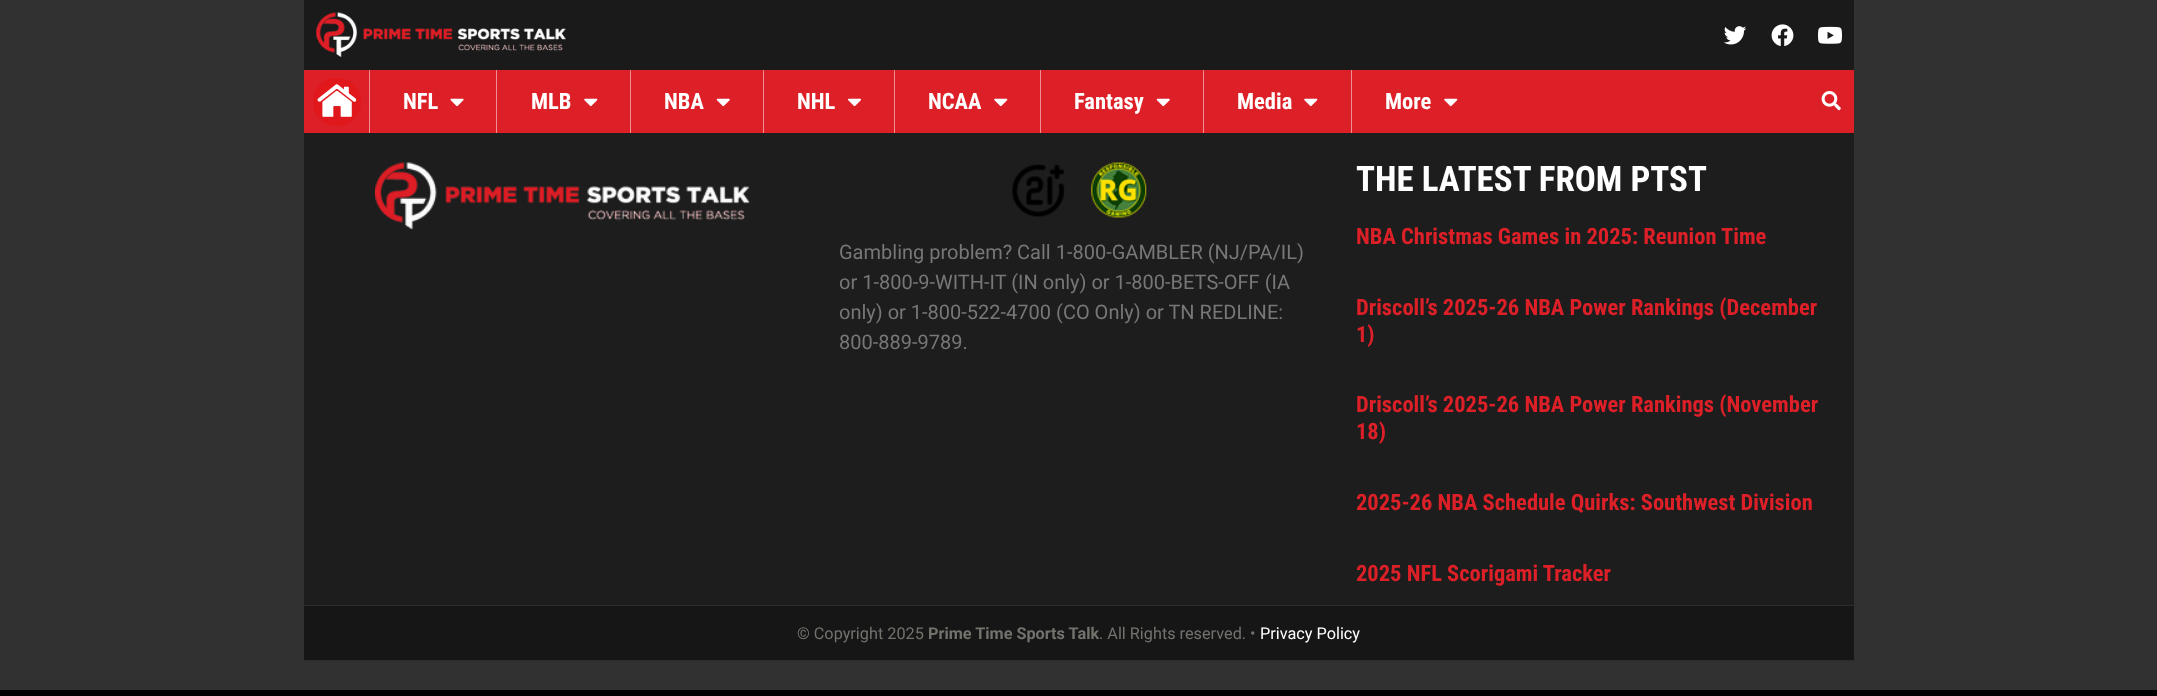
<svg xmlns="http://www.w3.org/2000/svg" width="2157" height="696">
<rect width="100%" height="100%" fill="#313131"/>
<rect x="304" width="1550" height="70" fill="#1a1a1a"/>
<image x="316" y="12" width="250" height="46" href="media/1.png"/>
<image x="1724" y="26" width="23" height="19" href="media/2.png"/>
<image x="1771" y="24" width="23" height="22" href="media/3.png"/>
<image x="1818" y="26" width="24" height="18" href="media/4.png"/>
<rect x="304" y="70" width="1550" height="63" fill="#dd2028"/>
<image x="313" y="78" width="48" height="48" href="media/5.png"/>
<rect x="369" y="70" width="1" height="63" fill="#ee9094"/>
<text x="403" y="109" style="font-family:Roboto Condensed;font-size:22.5px;font-weight:bold;fill:#fff">NFL</text>
<image x="450" y="98" width="14" height="9" href="media/6.png"/>
<rect x="496" y="70" width="1" height="63" fill="#ee9094"/>
<text x="531" y="109" style="font-family:Roboto Condensed;font-size:22.5px;font-weight:bold;fill:#fff">MLB</text>
<image x="584" y="98" width="14" height="9" href="media/7.png"/>
<rect x="630" y="70" width="1" height="63" fill="#ee9094"/>
<text x="664" y="109" style="font-family:Roboto Condensed;font-size:22.5px;font-weight:bold;fill:#fff">NBA</text>
<image x="716" y="98" width="14" height="9" href="media/8.png"/>
<rect x="763" y="70" width="1" height="63" fill="#ee9094"/>
<text x="797" y="109" style="font-family:Roboto Condensed;font-size:22.5px;font-weight:bold;fill:#fff">NHL</text>
<image x="848" y="98" width="13" height="9" href="media/9.png"/>
<rect x="894" y="70" width="1" height="63" fill="#ee9094"/>
<text x="928" y="109" style="font-family:Roboto Condensed;font-size:22.5px;font-weight:bold;fill:#fff">NCAA</text>
<image x="994" y="98" width="14" height="9" href="media/7.png"/>
<rect x="1040" y="70" width="1" height="63" fill="#ee9094"/>
<text x="1074" y="109" style="font-family:Roboto Condensed;font-size:22.5px;font-weight:bold;fill:#fff">Fantasy</text>
<image x="1156" y="98" width="14" height="9" href="media/8.png"/>
<rect x="1203" y="70" width="1" height="63" fill="#ee9094"/>
<text x="1237" y="109" style="font-family:Roboto Condensed;font-size:22.5px;font-weight:bold;fill:#fff">Media</text>
<image x="1304" y="98" width="14" height="9" href="media/7.png"/>
<rect x="1351" y="70" width="1" height="63" fill="#ee9094"/>
<text x="1385" y="109" style="font-family:Roboto Condensed;font-size:22.5px;font-weight:bold;fill:#fff">More</text>
<image x="1444" y="98" width="14" height="9" href="media/7.png"/>
<image x="1821" y="91" width="20" height="20" href="media/10.png"/>
<rect x="304" y="133" width="1550" height="472" fill="#1d1d1d"/>
<image x="375" y="162" width="375" height="68" href="media/11.png"/>
<image x="1012" y="164" width="53" height="53" href="media/12.png"/>
<image x="1091" y="162" width="56" height="56" href="media/13.png"/>
<text x="839" y="259" style="font-family:Roboto;font-size:20px;fill:#777">Gambling problem? Call 1-800-GAMBLER (NJ/PA/IL)</text>
<text x="839" y="289" style="font-family:Roboto;font-size:20px;fill:#777">or 1-800-9-WITH-IT (IN only) or 1-800-BETS-OFF (IA</text>
<text x="839" y="319" style="font-family:Roboto;font-size:20px;fill:#777">only) or 1-800-522-4700 (CO Only) or TN REDLINE:</text>
<text x="839" y="349" style="font-family:Roboto;font-size:20px;fill:#777">800-889-9789.</text>
<text x="1356" y="191" style="font-family:Roboto Condensed;font-size:35px;font-weight:bold;fill:#fff">THE LATEST FROM PTST</text>
<text x="1356" y="244" style="font-family:Roboto Condensed;font-size:22.5px;font-weight:bold;fill:#dd2028">NBA Christmas Games in 2025: Reunion Time</text>
<text x="1356" y="315" style="font-family:Roboto Condensed;font-size:22.5px;font-weight:bold;fill:#dd2028">Driscoll’s 2025-26 NBA Power Rankings (December</text>
<text x="1356" y="342" style="font-family:Roboto Condensed;font-size:22.5px;font-weight:bold;fill:#dd2028">1)</text>
<text x="1356" y="412" style="font-family:Roboto Condensed;font-size:22.5px;font-weight:bold;fill:#dd2028">Driscoll’s 2025-26 NBA Power Rankings (November</text>
<text x="1356" y="439" style="font-family:Roboto Condensed;font-size:22.5px;font-weight:bold;fill:#dd2028">18)</text>
<text x="1356" y="510" style="font-family:Roboto Condensed;font-size:22.5px;font-weight:bold;fill:#dd2028">2025-26 NBA Schedule Quirks: Southwest Division</text>
<text x="1356" y="581" style="font-family:Roboto Condensed;font-size:22.5px;font-weight:bold;fill:#dd2028">2025 NFL Scorigami Tracker</text>
<rect x="304" y="606" width="1550" height="54" fill="#161616"/>
<rect x="304" y="605" width="1550" height="1" fill="#2d2d2d"/>
<rect x="304" y="660" width="1550" height="1" fill="#2d2d2d"/>
<text x="797" y="639" style="font-family:Roboto;font-size:16.25px;fill:#73736e">© Copyright 2025</text>
<text x="928" y="639" style="font-family:Roboto;font-size:16.25px;font-weight:bold;fill:#73736e">Prime Time Sports Talk</text>
<text x="1099" y="639" style="font-family:Roboto;font-size:16.25px;fill:#73736e">. All Rights reserved. •</text>
<text x="1260" y="639" style="font-family:Roboto;font-size:16.25px;fill:#fff">Privacy Policy</text>
<rect y="690" width="2157" height="6" fill="#000"/>
</svg>
